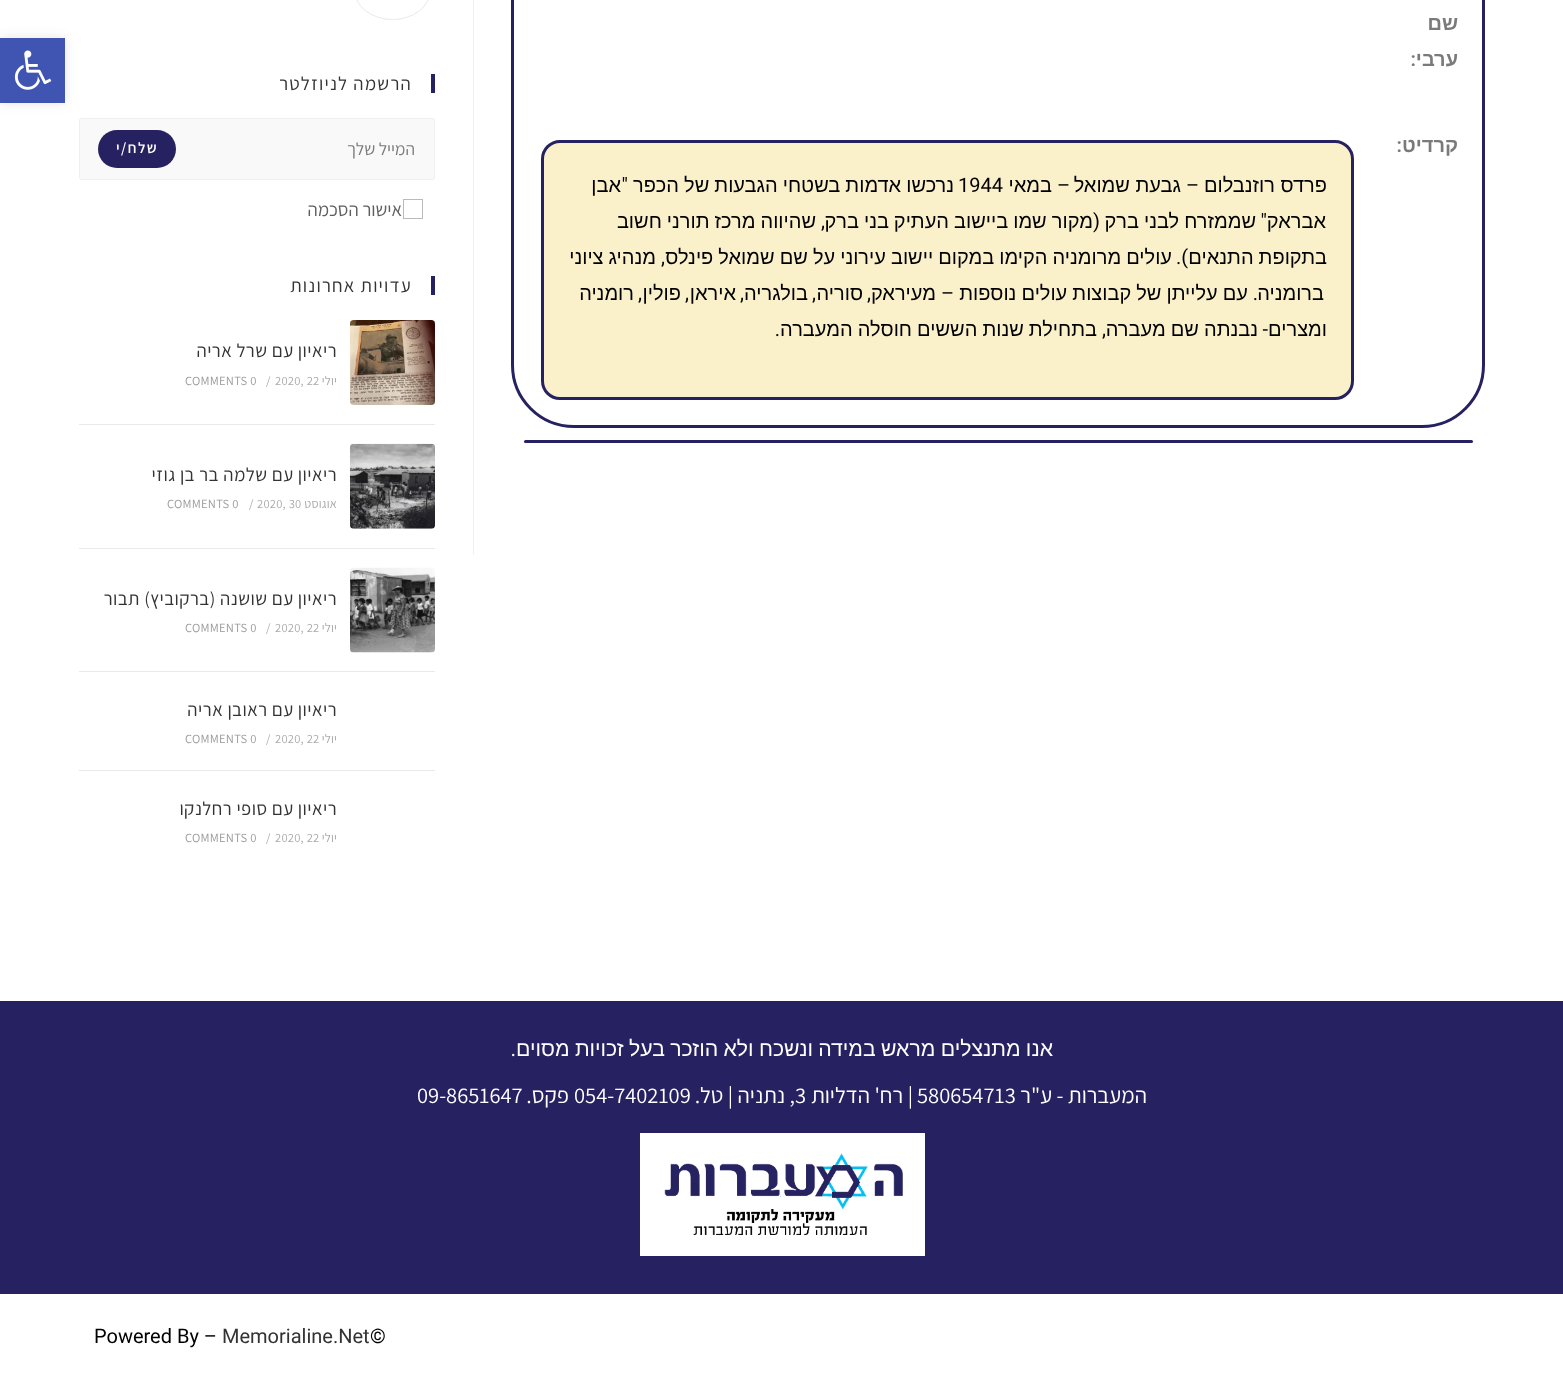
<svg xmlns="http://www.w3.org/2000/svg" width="1563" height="1380">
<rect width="100%" height="100%" fill="#fff"/>
<rect x="473" width="1" height="555" fill="#f1f1f1"/>
<rect x="512.5" y="-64.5" width="971" height="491" rx="61.5" fill="none" stroke="#262261" stroke-width="3"/>
<text x="1458" y="30" style="font-family:Liberation Sans;font-size:20px;font-weight:bold;direction:rtl;fill:#7a7a7a">שם</text>
<text x="1458" y="66" style="font-family:Liberation Sans;font-size:20px;font-weight:bold;direction:rtl;fill:#7a7a7a">ערבי</text>
<text x="1416" y="66" style="font-family:Roboto;font-size:20px;font-weight:600;direction:rtl;fill:#7a7a7a">:</text>
<text x="1458" y="152" style="font-family:Liberation Sans;font-size:20px;font-weight:bold;direction:rtl;fill:#7a7a7a">קרדיט</text>
<text x="1402" y="152" style="font-family:Roboto;font-size:20px;font-weight:600;direction:rtl;fill:#7a7a7a">:</text>
<rect x="542.5" y="141.5" width="810" height="257" rx="17.5" fill="#faf0ca" stroke="#262261" stroke-width="3"/>
<text x="1327" y="192" style="font-family:Liberation Sans;font-size:20px;direction:rtl;fill:#000">פרדס רוזנבלום</text>
<text x="1199" y="192" style="font-family:Roboto;font-size:20px;direction:rtl;fill:#000">–</text>
<text x="1181" y="192" style="font-family:Liberation Sans;font-size:20px;direction:rtl;fill:#000">גבעת שמואל</text>
<text x="1070" y="192" style="font-family:Roboto;font-size:20px;direction:rtl;fill:#000">–</text>
<text x="1052" y="192" style="font-family:Liberation Sans;font-size:20px;direction:rtl;fill:#000">במאי</text>
<text x="958" y="192" style="font-family:Roboto;font-size:20px;fill:#000">1944</text>
<text x="954" y="192" word-spacing="-0.5" style="font-family:Liberation Sans;font-size:20px;direction:rtl;fill:#000">נרכשו אדמות בשטחי הגבעות של הכפר</text>
<text x="628" y="192" style="font-family:Roboto;font-size:20px;direction:rtl;fill:#000">"</text>
<text x="621" y="192" style="font-family:Liberation Sans;font-size:20px;direction:rtl;fill:#000">אבן</text>
<text x="1326" y="228" style="font-family:Liberation Sans;font-size:20px;direction:rtl;fill:#000">אבראק</text>
<text x="1267" y="228" style="font-family:Roboto;font-size:20px;direction:rtl;fill:#000">"</text>
<text x="1256" y="228" word-spacing="-0.5" style="font-family:Liberation Sans;font-size:20px;direction:rtl;fill:#000">שממזרח לבני ברק</text>
<text x="1100" y="228" style="font-family:Roboto;font-size:20px;direction:rtl;fill:#000">(</text>
<text x="1093" y="228" word-spacing="-0.5" style="font-family:Liberation Sans;font-size:20px;direction:rtl;fill:#000">מקור שמו ביישוב העתיק</text>
<text x="889" y="228" word-spacing="-0.5" style="font-family:Liberation Sans;font-size:20px;direction:rtl;fill:#000">בני ברק</text>
<text x="825" y="228" style="font-family:Roboto;font-size:20px;direction:rtl;fill:#000">,</text>
<text x="816" y="228" word-spacing="-0.5" style="font-family:Liberation Sans;font-size:20px;direction:rtl;fill:#000">שהיווה מרכז תורני חשוב</text>
<text x="1327" y="264" word-spacing="-0.5" style="font-family:Liberation Sans;font-size:20px;direction:rtl;fill:#000">בתקופת התנאים</text>
<text x="1188" y="264" style="font-family:Roboto;font-size:20px;direction:rtl;fill:#000">).</text>
<text x="1172" y="264" word-spacing="-0.5" style="font-family:Liberation Sans;font-size:20px;direction:rtl;fill:#000">עולים מרומניה הקימו במקום יישוב עירוני על שם שמואל פינלס</text>
<text x="665" y="264" style="font-family:Roboto;font-size:20px;direction:rtl;fill:#000">,</text>
<text x="656" y="264" word-spacing="-0.5" style="font-family:Liberation Sans;font-size:20px;direction:rtl;fill:#000">מנהיג ציוני</text>
<text x="1324" y="300" style="font-family:Liberation Sans;font-size:20px;direction:rtl;fill:#000">ברומניה</text>
<text x="1248" y="300" word-spacing="-0.5" style="font-family:Liberation Sans;font-size:20px;direction:rtl;fill:#000">עם עלייתן של קבוצות עולים נוספות</text>
<text x="954" y="300" style="font-family:Roboto;font-size:20px;direction:rtl;fill:#000">–</text>
<text x="936" y="300" style="font-family:Liberation Sans;font-size:20px;direction:rtl;fill:#000">מעיראק</text>
<text x="863" y="300" style="font-family:Liberation Sans;font-size:20px;direction:rtl;fill:#000">סוריה</text>
<text x="808" y="300" style="font-family:Liberation Sans;font-size:20px;direction:rtl;fill:#000">בולגריה</text>
<text x="736" y="300" style="font-family:Liberation Sans;font-size:20px;direction:rtl;fill:#000">איראן</text>
<text x="681" y="300" style="font-family:Liberation Sans;font-size:20px;direction:rtl;fill:#000">פולין</text>
<text x="634" y="300" style="font-family:Liberation Sans;font-size:20px;direction:rtl;fill:#000">רומניה</text>
<text x="1258" y="300" style="font-family:Roboto;font-size:20px;direction:rtl;fill:#000">.</text>
<text x="871" y="300" style="font-family:Roboto;font-size:20px;direction:rtl;fill:#000">,</text>
<text x="816" y="300" style="font-family:Roboto;font-size:20px;direction:rtl;fill:#000">,</text>
<text x="744" y="300" style="font-family:Roboto;font-size:20px;direction:rtl;fill:#000">,</text>
<text x="689" y="300" style="font-family:Roboto;font-size:20px;direction:rtl;fill:#000">,</text>
<text x="642" y="300" style="font-family:Roboto;font-size:20px;direction:rtl;fill:#000">,</text>
<text x="1327" y="336" style="font-family:Liberation Sans;font-size:20px;direction:rtl;fill:#000">ומצרים</text>
<text x="1268" y="336" style="font-family:Roboto;font-size:20px;direction:rtl;fill:#000">-</text>
<text x="1258" y="336" word-spacing="-0.5" style="font-family:Liberation Sans;font-size:20px;direction:rtl;fill:#000">נבנתה שם מעברה</text>
<text x="1097" y="336" word-spacing="-0.5" style="font-family:Liberation Sans;font-size:20px;direction:rtl;fill:#000">בתחילת שנות הששים חוסלה המעברה</text>
<text x="1106" y="336" style="font-family:Roboto;font-size:20px;direction:rtl;fill:#000">,</text>
<text x="780" y="336" style="font-family:Roboto;font-size:20px;direction:rtl;fill:#000">.</text>
<rect x="524" y="440" width="949" height="3" rx="1.5" fill="#262261"/>
<rect x="354.5" y="-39.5" width="76" height="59" rx="38" fill="none" stroke="#e9e9e9"/>
<rect x="431" y="74" width="4" height="19" fill="#262261"/>
<text x="412" y="90" style="font-family:Assistant;font-size:18.75px;letter-spacing:1.25px;direction:rtl;fill:#333">הרשמה לניוזלטר</text>
<rect x="79.5" y="118.5" width="355" height="61" rx="2" fill="#f9f9f9" stroke="#efefef"/>
<text x="415" y="155" style="font-family:Assistant;font-size:17.5px;direction:rtl;fill:#7a7a7a">המייל שלך</text>
<rect x="98" y="130" width="78" height="38" rx="19" fill="#262261"/>
<text x="158" y="153" style="font-family:Assistant;font-size:15px;font-weight:600;letter-spacing:1.5px;direction:rtl;fill:#fff">שלח/י</text>
<rect x="403.5" y="199.5" width="19" height="19" fill="none" stroke="#bbb"/>
<text x="402" y="216" style="font-family:Assistant;font-size:18.75px;direction:rtl;fill:#5e5e5e">אישור הסכמה</text>
<rect x="431" y="276" width="4" height="19" fill="#262261"/>
<text x="412" y="292" style="font-family:Assistant;font-size:18.75px;letter-spacing:1.25px;direction:rtl;fill:#333">עדויות אחרונות</text>
<image x="350" y="320" width="85" height="85" href="media/1.png"/>
<text x="337" y="357" style="font-family:Assistant;font-size:18.75px;letter-spacing:0.5px;direction:rtl;fill:#333">ריאיון עם שרל אריה</text>
<text x="337" y="385" style="font-family:Assistant;font-size:12.5px;letter-spacing:0.25px;direction:rtl;fill:#aaa">יולי</text>
<text x="275" y="385" style="font-family:Assistant;font-size:12.5px;letter-spacing:0.25px;fill:#aaa">2020, 22</text>
<text x="266" y="385" style="font-family:Assistant;font-size:12.5px;letter-spacing:0.25px;fill:#aaa">/</text>
<text x="185" y="385" style="font-family:Assistant;font-size:12.5px;letter-spacing:0.25px;fill:#999">COMMENTS 0</text>
<rect x="79" y="424" width="356" height="1" fill="#e9e9e9"/>
<image x="350" y="443" width="85" height="86" href="media/2.png"/>
<text x="337" y="481" style="font-family:Assistant;font-size:18.75px;letter-spacing:0.5px;direction:rtl;fill:#333">ריאיון עם שלמה בר בן גוזי</text>
<text x="337" y="508" style="font-family:Assistant;font-size:12.5px;letter-spacing:0.25px;direction:rtl;fill:#aaa">אוגוסט</text>
<text x="257" y="508" style="font-family:Assistant;font-size:12.5px;letter-spacing:0.25px;fill:#aaa">2020, 30</text>
<text x="249" y="508" style="font-family:Assistant;font-size:12.5px;letter-spacing:0.25px;fill:#aaa">/</text>
<text x="167" y="508" style="font-family:Assistant;font-size:12.5px;letter-spacing:0.25px;fill:#999">COMMENTS 0</text>
<rect x="79" y="548" width="356" height="1" fill="#e9e9e9"/>
<image x="350" y="567" width="85" height="86" href="media/3.png"/>
<text x="337" y="605" style="font-family:Assistant;font-size:18.75px;letter-spacing:0.5px;direction:rtl;fill:#333">ריאיון עם שושנה (ברקוביץ) תבור</text>
<text x="337" y="632" style="font-family:Assistant;font-size:12.5px;letter-spacing:0.25px;direction:rtl;fill:#aaa">יולי</text>
<text x="275" y="632" style="font-family:Assistant;font-size:12.5px;letter-spacing:0.25px;fill:#aaa">2020, 22</text>
<text x="266" y="632" style="font-family:Assistant;font-size:12.5px;letter-spacing:0.25px;fill:#aaa">/</text>
<text x="185" y="632" style="font-family:Assistant;font-size:12.5px;letter-spacing:0.25px;fill:#999">COMMENTS 0</text>
<rect x="79" y="671" width="356" height="1" fill="#e9e9e9"/>
<text x="337" y="716" style="font-family:Assistant;font-size:18.75px;letter-spacing:0.5px;direction:rtl;fill:#333">ריאיון עם ראובן אריה</text>
<text x="337" y="743" style="font-family:Assistant;font-size:12.5px;letter-spacing:0.25px;direction:rtl;fill:#aaa">יולי</text>
<text x="275" y="743" style="font-family:Assistant;font-size:12.5px;letter-spacing:0.25px;fill:#aaa">2020, 22</text>
<text x="266" y="743" style="font-family:Assistant;font-size:12.5px;letter-spacing:0.25px;fill:#aaa">/</text>
<text x="185" y="743" style="font-family:Assistant;font-size:12.5px;letter-spacing:0.25px;fill:#999">COMMENTS 0</text>
<rect x="79" y="770" width="356" height="1" fill="#e9e9e9"/>
<text x="337" y="815" style="font-family:Assistant;font-size:18.75px;letter-spacing:0.5px;direction:rtl;fill:#333">ריאיון עם סופי רחלנקו</text>
<text x="337" y="842" style="font-family:Assistant;font-size:12.5px;letter-spacing:0.25px;direction:rtl;fill:#aaa">יולי</text>
<text x="275" y="842" style="font-family:Assistant;font-size:12.5px;letter-spacing:0.25px;fill:#aaa">2020, 22</text>
<text x="266" y="842" style="font-family:Assistant;font-size:12.5px;letter-spacing:0.25px;fill:#aaa">/</text>
<text x="185" y="842" style="font-family:Assistant;font-size:12.5px;letter-spacing:0.25px;fill:#999">COMMENTS 0</text>
<rect y="1001" width="1563" height="293" fill="#262261"/>
<text x="1053" y="1056" word-spacing="-0.6" style="font-family:Liberation Sans;font-size:21.25px;direction:rtl;fill:#fff">אנו מתנצלים מראש במידה ונשכח ולא הוזכר בעל זכויות מסוים</text>
<text x="516" y="1056" style="font-family:Roboto;font-size:21.25px;direction:rtl;fill:#fff">.</text>
<text x="1147" y="1103" style="font-family:Assistant;font-size:22.5px;direction:rtl;fill:#fff">המעברות - ע"ר</text>
<text x="917" y="1103" style="font-family:Assistant;font-size:22.5px;fill:#fff">580654713</text>
<text x="913" y="1103" style="font-family:Assistant;font-size:22.5px;direction:rtl;fill:#fff">| רח' הדליות</text>
<text x="795" y="1103" style="font-family:Assistant;font-size:22.5px;fill:#fff">3</text>
<text x="795" y="1103" style="font-family:Assistant;font-size:22.5px;direction:rtl;fill:#fff">, נתניה | טל.</text>
<text x="574" y="1103" style="font-family:Assistant;font-size:22.5px;fill:#fff">054-7402109</text>
<text x="569" y="1103" style="font-family:Assistant;font-size:22.5px;direction:rtl;fill:#fff">פקס.</text>
<text x="417" y="1103" style="font-family:Assistant;font-size:22.5px;fill:#fff">09-8651647</text>
<rect x="640" y="1133" width="285" height="123" fill="#fff"/>
<image x="664" y="1153" width="239" height="82" href="media/4.png"/>
<text x="370" y="1343" style="font-family:Roboto;font-size:20px;fill:#000">©</text>
<text x="222" y="1343" style="font-family:Roboto;font-size:20px;fill:#333">Memorialine.Net</text>
<text x="94" y="1343" style="font-family:Roboto;font-size:20px;fill:#000">Powered By –</text>
<rect y="38" width="65" height="65" fill="#0000001a" filter="blur(6px)"/>
<rect y="38" width="65" height="65" fill="#4054b2"/>
<image x="14" y="50" width="38" height="40" href="media/5.png"/>
</svg>
